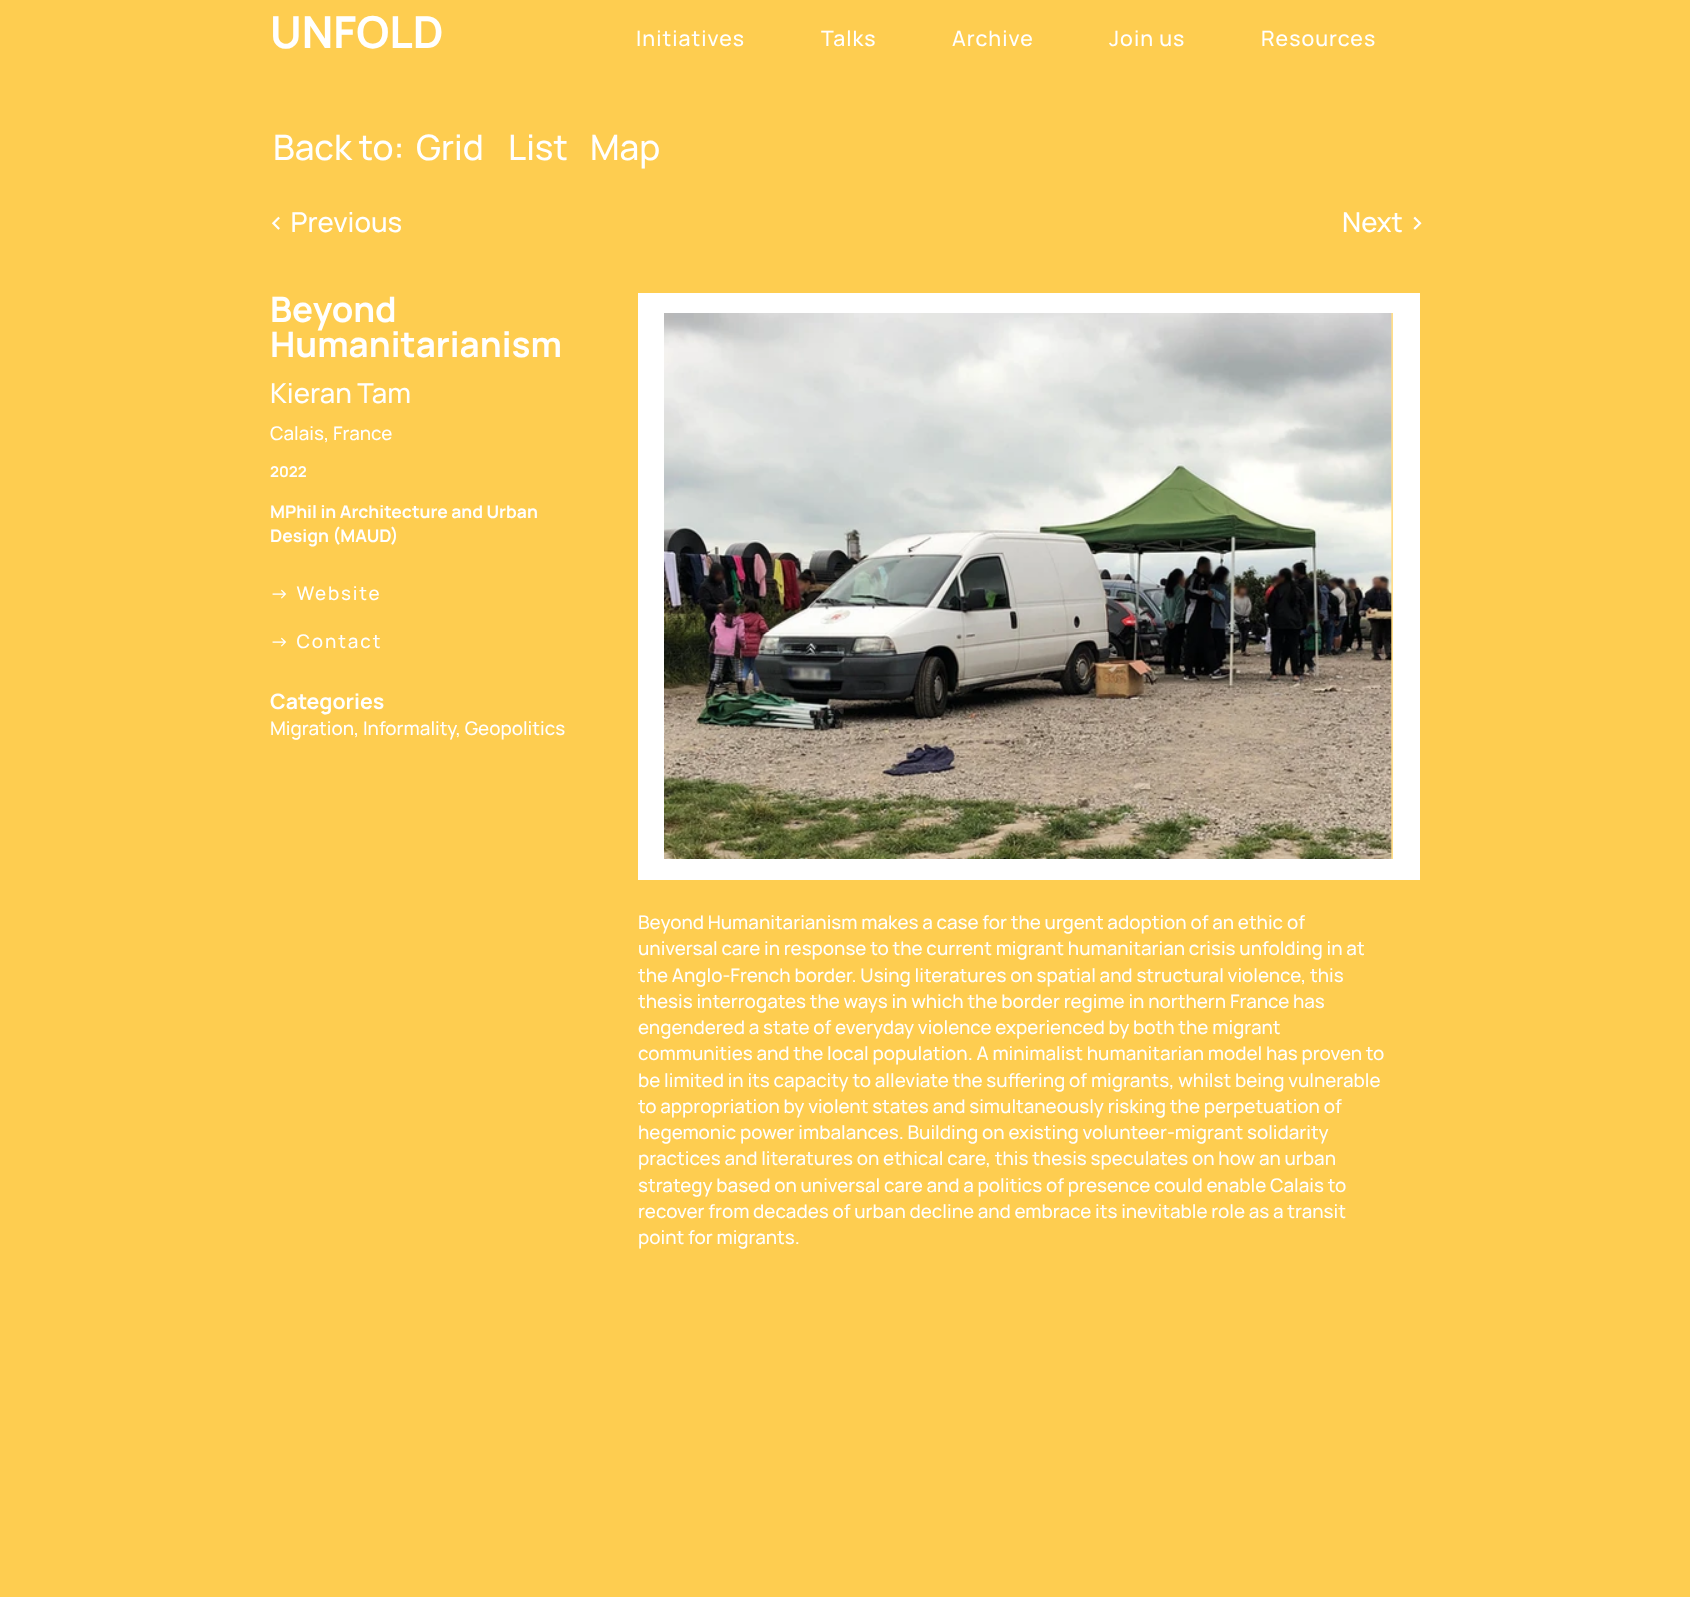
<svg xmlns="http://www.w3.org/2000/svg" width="1690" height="1597">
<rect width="100%" height="100%" fill="#fecd50"/>
<text x="270" y="48" style="font-family:Manrope;font-size:44px;font-weight:bold;fill:#fff">UNFOLD</text>
<text x="636" y="46" style="font-family:Manrope;font-size:21.25px;font-weight:500;letter-spacing:1px;fill:#fff">Initiatives</text>
<text x="821" y="46" style="font-family:Manrope;font-size:21.25px;font-weight:500;letter-spacing:1px;fill:#fff">Talks</text>
<text x="952" y="46" style="font-family:Manrope;font-size:21.25px;font-weight:500;letter-spacing:1px;fill:#fff">Archive</text>
<text x="1109" y="46" style="font-family:Manrope;font-size:21.25px;font-weight:500;letter-spacing:1px;fill:#fff">Join us</text>
<text x="1261" y="46" style="font-family:Manrope;font-size:21.25px;font-weight:500;letter-spacing:1px;fill:#fff">Resources</text>
<text x="273" y="160" style="font-family:Manrope;font-size:35px;font-weight:500;fill:#fff">Back to:</text>
<text x="416" y="160" style="font-family:Manrope;font-size:35px;font-weight:500;fill:#fff">Grid</text>
<text x="508" y="160" style="font-family:Manrope;font-size:35px;font-weight:500;fill:#fff">List</text>
<text x="590" y="160" style="font-family:Manrope;font-size:35px;font-weight:500;fill:#fff">Map</text>
<text x="268" y="232" style="font-family:Manrope;font-size:27.5px;font-weight:500;fill:#fff">&lt; Previous</text>
<text x="1342" y="232" style="font-family:Manrope;font-size:27.5px;font-weight:500;fill:#fff">Next &gt;</text>
<text x="270" y="322" style="font-family:Manrope;font-size:35px;font-weight:bold;fill:#fff">Beyond</text>
<text x="270" y="357" style="font-family:Manrope;font-size:35px;font-weight:bold;fill:#fff">Humanitarianism</text>
<rect x="638" y="293" width="782" height="587" fill="#fff"/>
<rect x="1391" y="313" width="2" height="546" fill="#ffde8a"/>
<image x="664" y="313" width="728" height="546" href="media/1.png"/>
<text x="270" y="403" style="font-family:Manrope;font-size:27.5px;font-weight:500;fill:#fff">Kieran Tam</text>
<text x="270" y="440" style="font-family:Manrope;font-size:18.75px;font-weight:500;fill:#fff">Calais, France</text>
<text x="270" y="477" style="font-family:Manrope;font-size:15px;font-weight:bold;fill:#fff">2022</text>
<text x="270" y="518" style="font-family:Manrope;font-size:17.5px;font-weight:bold;fill:#fff">MPhil in Architecture and Urban</text>
<text x="270" y="542" style="font-family:Manrope;font-size:17.5px;font-weight:bold;fill:#fff">Design (MAUD)</text>
<text x="270" y="600" style="font-family:Manrope;font-size:18.75px;font-weight:500;letter-spacing:1.9px;fill:#fff">→ Website</text>
<text x="270" y="648" style="font-family:Manrope;font-size:18.75px;font-weight:500;letter-spacing:1.9px;fill:#fff">→ Contact</text>
<text x="270" y="709" style="font-family:Manrope;font-size:21.25px;font-weight:bold;fill:#fff">Categories</text>
<text x="270" y="735" style="font-family:Manrope;font-size:18.75px;font-weight:500;fill:#fff">Migration, Informality, Geopolitics</text>
<text x="638" y="929" style="font-family:Manrope;font-size:18.75px;font-weight:500;fill:#fff">Beyond Humanitarianism makes a case for the urgent adoption of an ethic of</text>
<text x="638" y="955" style="font-family:Manrope;font-size:18.75px;font-weight:500;fill:#fff">universal care in response to the current migrant humanitarian crisis unfolding in at</text>
<text x="638" y="982" style="font-family:Manrope;font-size:18.75px;font-weight:500;fill:#fff">the Anglo-French border. Using literatures on spatial and structural violence, this</text>
<text x="638" y="1008" style="font-family:Manrope;font-size:18.75px;font-weight:500;fill:#fff">thesis interrogates the ways in which the border regime in northern France has</text>
<text x="638" y="1034" style="font-family:Manrope;font-size:18.75px;font-weight:500;fill:#fff">engendered a state of everyday violence experienced by both the migrant</text>
<text x="638" y="1060" style="font-family:Manrope;font-size:18.75px;font-weight:500;fill:#fff">communities and the local population. A minimalist humanitarian model has proven to</text>
<text x="638" y="1087" style="font-family:Manrope;font-size:18.75px;font-weight:500;fill:#fff">be limited in its capacity to alleviate the suffering of migrants, whilst being vulnerable</text>
<text x="638" y="1113" style="font-family:Manrope;font-size:18.75px;font-weight:500;fill:#fff">to appropriation by violent states and simultaneously risking the perpetuation of</text>
<text x="638" y="1139" style="font-family:Manrope;font-size:18.75px;font-weight:500;fill:#fff">hegemonic power imbalances. Building on existing volunteer-migrant solidarity</text>
<text x="638" y="1165" style="font-family:Manrope;font-size:18.75px;font-weight:500;fill:#fff">practices and literatures on ethical care, this thesis speculates on how an urban</text>
<text x="638" y="1192" style="font-family:Manrope;font-size:18.75px;font-weight:500;fill:#fff">strategy based on universal care and a politics of presence could enable Calais to</text>
<text x="638" y="1218" style="font-family:Manrope;font-size:18.75px;font-weight:500;fill:#fff">recover from decades of urban decline and embrace its inevitable role as a transit</text>
<text x="638" y="1244" style="font-family:Manrope;font-size:18.75px;font-weight:500;fill:#fff">point for migrants.</text>
</svg>
